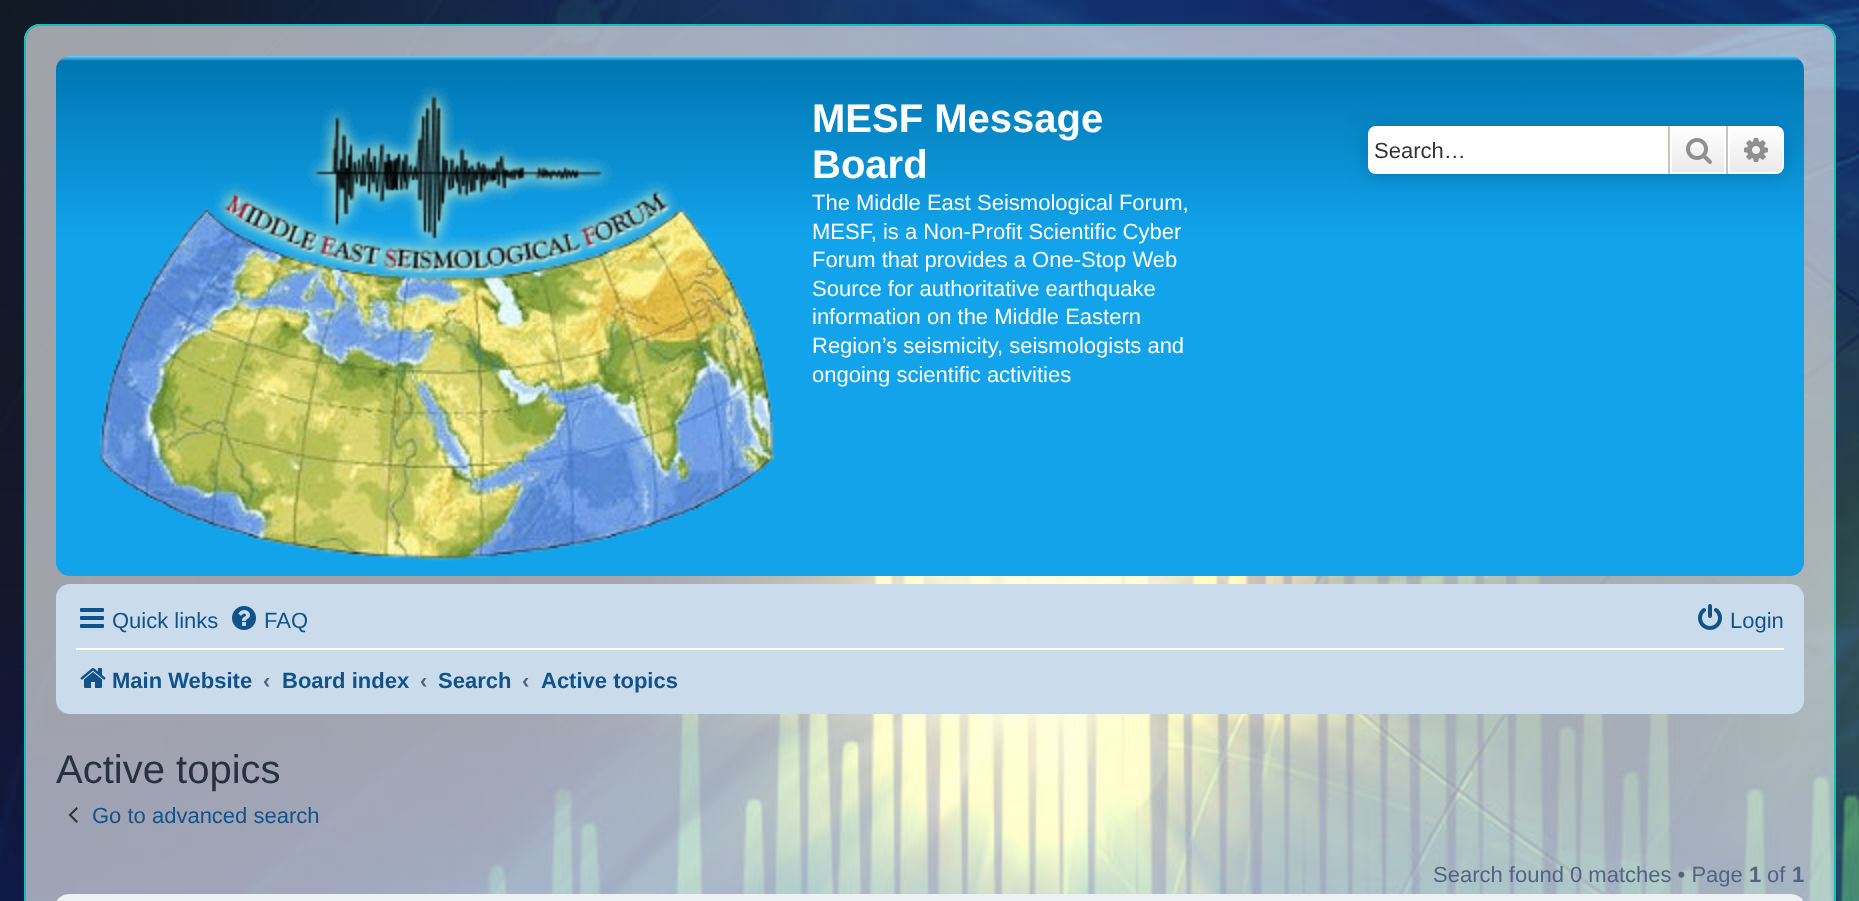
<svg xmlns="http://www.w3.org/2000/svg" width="1859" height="901">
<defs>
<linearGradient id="g1" gradientUnits="userSpaceOnUse" x1="930" y1="56" x2="930" y2="576"><stop offset="0" stop-color="#6aceff"/><stop offset="0.01" stop-color="#0076b1"/><stop offset="0.35" stop-color="#12a3eb"/><stop offset="1" stop-color="#12a3eb"/></linearGradient>
<linearGradient id="g2" gradientUnits="userSpaceOnUse" x1="1698" y1="126" x2="1698" y2="174"><stop offset="0" stop-color="#fff"/><stop offset="1" stop-color="#e9e9e9"/></linearGradient>
<linearGradient id="g3" gradientUnits="userSpaceOnUse" x1="1756" y1="126" x2="1756" y2="174"><stop offset="0" stop-color="#fff"/><stop offset="1" stop-color="#e9e9e9"/></linearGradient>
</defs>
<rect width="100%" height="100%" fill="#fff"/>
<image x="0" y="0" width="1859" height="901" href="media/1.png"/>
<rect x="25" y="25" width="1810" height="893" rx="15" fill="none" stroke="#12c0b6" stroke-width="2"/>
<rect x="56" y="56" width="1748" height="520" rx="14" fill="url(#g1)"/>
<image x="99" y="86" width="676" height="475" href="media/2.png"/>
<text x="812" y="132" style="font-family:Liberation Sans;font-size:40px;font-weight:bold;fill:#fff">MESF Message</text>
<text x="812" y="178" style="font-family:Liberation Sans;font-size:40px;font-weight:bold;fill:#fff">Board</text>
<text x="812" y="210" style="font-family:Liberation Sans;font-size:22px;fill:#fff">The Middle East Seismological Forum,</text>
<text x="812" y="239" style="font-family:Liberation Sans;font-size:22px;fill:#fff">MESF, is a Non-Profit Scientific Cyber</text>
<text x="812" y="267" style="font-family:Liberation Sans;font-size:22px;fill:#fff">Forum that provides a One-Stop Web</text>
<text x="812" y="296" style="font-family:Liberation Sans;font-size:22px;fill:#fff">Source for authoritative earthquake</text>
<text x="812" y="324" style="font-family:Liberation Sans;font-size:22px;fill:#fff">information on the Middle Eastern</text>
<text x="812" y="353" style="font-family:Liberation Sans;font-size:22px;fill:#fff">Region’s seismicity, seismologists and</text>
<text x="812" y="382" style="font-family:Liberation Sans;font-size:22px;fill:#fff">ongoing scientific activities</text>
<rect x="1368" y="126" width="416" height="48" rx="8" fill="#0075b0" filter="blur(10px)"/>
<path d="M1376 126h292v48h-292c-4.5 0-8-3.5-8-8v-32c0-4.5 3.5-8 8-8z" fill="#fff"/>
<text x="1374" y="158" style="font-family:Liberation Sans;font-size:22px;fill:#333">Search…</text>
<rect x="1672" y="128" width="52" height="44" fill="url(#g2)"/>
<rect x="1671" y="127" width="54" height="46" fill="none" stroke="#fff" stroke-width="2"/>
<rect x="1726" y="126" width="2" height="48" fill="#c7c3bf"/>
<rect x="1668" y="126" width="2" height="48" fill="#c7c3bf"/>
<image x="1686" y="138" width="26" height="26" href="media/3.png"/>
<path d="M1729 127h47c4 0 7 3 7 7v32c0 4-3 7-7 7h-47z" fill="url(#g3)" stroke="#fff" stroke-width="2"/>
<image x="1744" y="138" width="24" height="24" href="media/4.png"/>
<rect x="56" y="584" width="1748" height="130" rx="14" fill="#cadceb"/>
<image x="80" y="608" width="24" height="20" href="media/5.png"/>
<text x="112" y="628" style="font-family:Liberation Sans;font-size:22px;fill:#105289">Quick links</text>
<image x="232" y="606" width="24" height="24" href="media/6.png"/>
<text x="264" y="628" style="font-family:Liberation Sans;font-size:22px;fill:#105289">FAQ</text>
<image x="1698" y="604" width="24" height="26" href="media/7.png"/>
<text x="1730" y="628" style="font-family:Liberation Sans;font-size:22px;fill:#105289">Login</text>
<rect x="76" y="648" width="1708" height="2" fill="#fff"/>
<image x="80" y="668" width="26" height="20" href="media/8.png"/>
<text x="112" y="688" style="font-family:Liberation Sans;font-size:22px;font-weight:bold;fill:#105289">Main Website</text>
<text x="263" y="688" style="font-family:Liberation Sans;font-size:22px;font-weight:bold;fill:#536482">‹</text>
<text x="282" y="688" style="font-family:Liberation Sans;font-size:22px;font-weight:bold;fill:#105289">Board index</text>
<text x="420" y="688" style="font-family:Liberation Sans;font-size:22px;font-weight:bold;fill:#536482">‹</text>
<text x="438" y="688" style="font-family:Liberation Sans;font-size:22px;font-weight:bold;fill:#105289">Search</text>
<text x="522" y="688" style="font-family:Liberation Sans;font-size:22px;font-weight:bold;fill:#536482">‹</text>
<text x="541" y="688" style="font-family:Liberation Sans;font-size:22px;font-weight:bold;fill:#105289">Active topics</text>
<text x="56" y="783" style="font-family:Liberation Sans;font-size:40px;fill:#28313f">Active topics</text>
<image x="68" y="807" width="10" height="16" href="media/9.png"/>
<text x="92" y="823" style="font-family:Liberation Sans;font-size:22px;fill:#105289">Go to advanced search</text>
<text x="1433" y="882" style="font-family:Liberation Sans;font-size:22px;fill:#536482">Search found 0 matches • Page</text>
<text x="1749" y="882" style="font-family:Liberation Sans;font-size:22px;font-weight:bold;fill:#536482">1</text>
<text x="1767" y="882" style="font-family:Liberation Sans;font-size:22px;fill:#536482">of</text>
<text x="1792" y="882" style="font-family:Liberation Sans;font-size:22px;font-weight:bold;fill:#536482">1</text>
<rect x="56" y="894" width="1748" height="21" rx="14" fill="#ecf1f3"/>
</svg>
